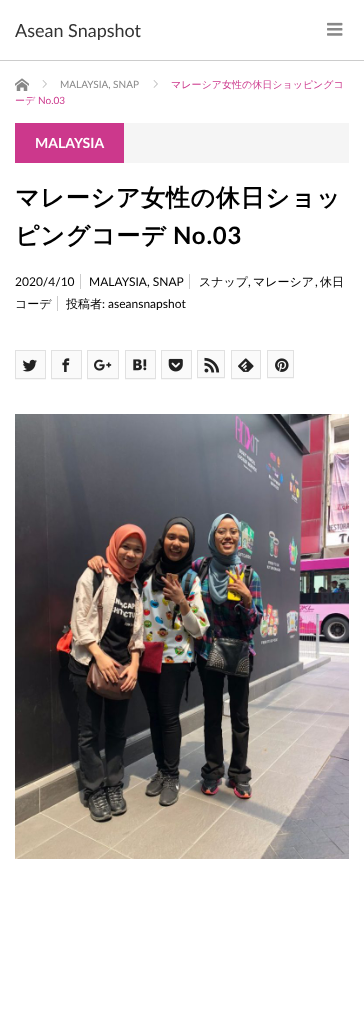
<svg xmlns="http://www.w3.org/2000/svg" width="364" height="1023">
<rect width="100%" height="100%" fill="#fff"/>
<rect y="60" width="364" height="1" fill="#ccc"/>
<text x="15" y="37" style="font-family:Lato;font-size:18px;fill:#333">Asean Snapshot</text>
<image x="327" y="22" width="16" height="14" href="media/1.png"/>
<image x="15" y="78" width="14" height="13" href="media/2.png"/>
<image x="153" y="80" width="5" height="8" href="media/3.png"/>
<text x="171" y="88" style="font-family:WenQuanYi Zen Hei;font-size:10px;font-weight:500;fill:#cc388c">マレーシア女性の休日ショッピングコ</text>
<text x="15" y="104" style="font-family:WenQuanYi Zen Hei;font-size:10px;font-weight:500;fill:#cc388c">ーデ</text>
<text x="38" y="104" style="font-family:Lato;font-size:10px;fill:#cc388c">No.03</text>
<image x="42" y="80" width="5" height="8" href="media/3.png"/>
<text x="60" y="88" style="font-family:Lato;font-size:10px;fill:#888">MALAYSIA, SNAP</text>
<rect x="124" y="123" width="225" height="40" fill="#f5f5f5"/>
<rect x="15" y="123" width="109" height="40" fill="#cc388c"/>
<text x="35" y="148" style="font-family:Lato;font-size:14px;font-weight:bold;fill:#fff">MALAYSIA</text>
<text x="15" y="206" style="font-family:WenQuanYi Zen Hei;font-size:24px;font-weight:bold;letter-spacing:0.75px;fill:#000">マレーシア女性の休日ショッ</text>
<text x="15" y="244" style="font-family:WenQuanYi Zen Hei;font-size:24px;font-weight:bold;letter-spacing:0.75px;fill:#000">ピングコーデ</text>
<text x="173" y="244" style="font-family:Lato;font-size:24px;font-weight:bold;letter-spacing:0.75px;fill:#000">No.03</text>
<text x="15" y="286" style="font-family:Lato;font-size:12px;fill:#000">2020/4/10</text>
<rect x="80" y="274" width="1" height="15" fill="#ccc"/>
<text x="89" y="286" style="font-family:Lato;font-size:12px;fill:#000">MALAYSIA, SNAP</text>
<rect x="189" y="274" width="1" height="15" fill="#ccc"/>
<text x="199" y="286" style="font-family:WenQuanYi Zen Hei;font-size:12px;font-weight:500;fill:#000">スナップ</text>
<text x="248" y="286" style="font-family:Lato;font-size:12px;fill:#000">,</text>
<text x="253" y="286" style="font-family:WenQuanYi Zen Hei;font-size:12px;font-weight:500;fill:#000">マレーシア</text>
<text x="315" y="286" style="font-family:Lato;font-size:12px;fill:#000">,</text>
<text x="320" y="286" style="font-family:WenQuanYi Zen Hei;font-size:12px;font-weight:500;fill:#000">休日</text>
<text x="15" y="308" style="font-family:WenQuanYi Zen Hei;font-size:12px;font-weight:500;fill:#000">コーデ</text>
<rect x="57" y="296" width="1" height="15" fill="#ccc"/>
<text x="66" y="308" style="font-family:WenQuanYi Zen Hei;font-size:12px;font-weight:500;fill:#000">投稿者</text>
<text x="102" y="308" style="font-family:Lato;font-size:12px;fill:#000">: aseansnapshot</text>
<rect x="15" y="379" width="31" height="1" fill="#f7f7f7"/>
<rect x="15.5" y="350.5" width="30" height="28" fill="#fafafa" stroke="#e1e1e1"/>
<image x="22" y="359" width="15" height="13" href="media/4.png"/>
<rect x="51" y="379" width="31" height="1" fill="#f7f7f7"/>
<rect x="51.5" y="350.5" width="30" height="28" fill="#fafafa" stroke="#e1e1e1"/>
<image x="62" y="358" width="8" height="14" href="media/5.png"/>
<rect x="87" y="379" width="32" height="1" fill="#f7f7f7"/>
<rect x="87.5" y="350.5" width="31" height="28" fill="#fafafa" stroke="#e1e1e1"/>
<image x="94" y="359" width="18" height="12" href="media/6.png"/>
<rect x="125" y="379" width="31" height="1" fill="#f7f7f7"/>
<rect x="125.5" y="350.5" width="30" height="28" fill="#fafafa" stroke="#e1e1e1"/>
<image x="133" y="359" width="14" height="12" href="media/7.png"/>
<rect x="161" y="379" width="31" height="1" fill="#f7f7f7"/>
<rect x="161.5" y="350.5" width="30" height="28" fill="#fafafa" stroke="#e1e1e1"/>
<image x="168" y="358" width="15" height="14" href="media/8.png"/>
<rect x="197" y="378" width="28" height="1" fill="#f7f7f7"/>
<rect x="197.5" y="350.5" width="27" height="27" fill="#fafafa" stroke="#e1e1e1"/>
<image x="204" y="357" width="16" height="16" href="media/9.png"/>
<rect x="231" y="379" width="30" height="1" fill="#f7f7f7"/>
<rect x="231.5" y="350.5" width="29" height="28" fill="#fafafa" stroke="#e1e1e1"/>
<image x="238" y="358" width="16" height="14" href="media/10.png"/>
<rect x="267" y="378" width="27" height="1" fill="#f7f7f7"/>
<rect x="267.5" y="350.5" width="26" height="27" fill="#fafafa" stroke="#e1e1e1"/>
<image x="275" y="358" width="14" height="14" href="media/11.png"/>
<image x="15" y="414" width="334" height="445" href="media/12.png"/>
</svg>
